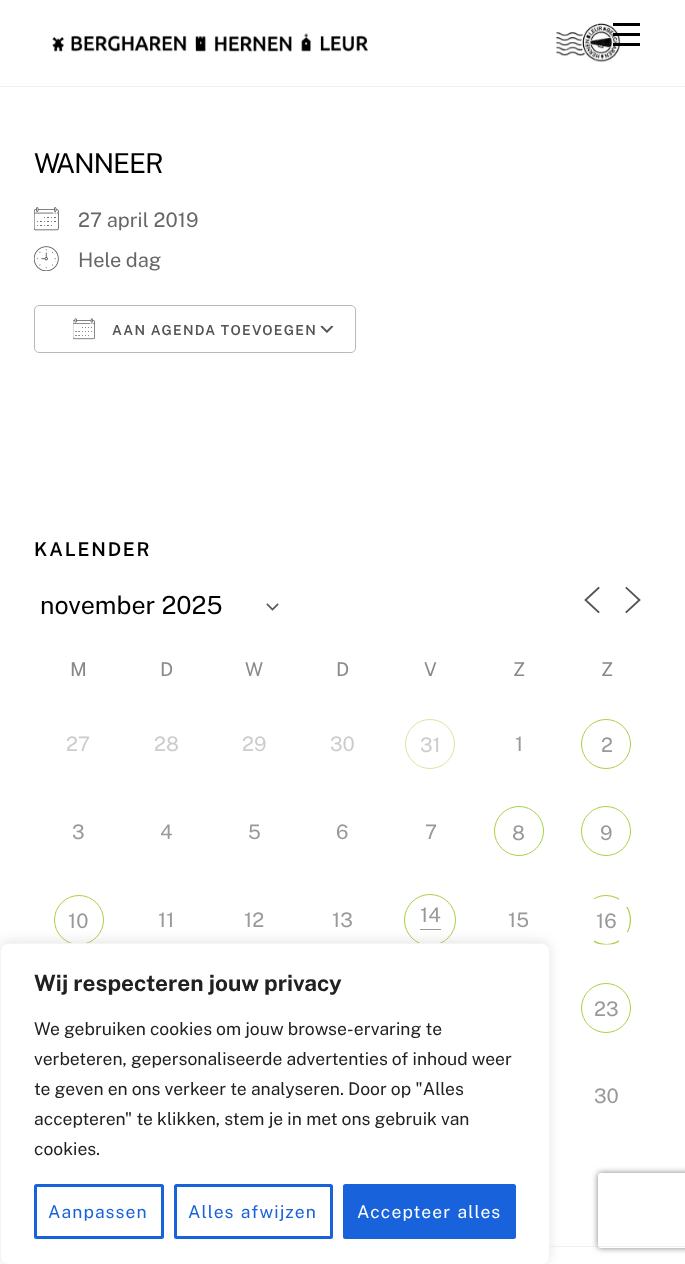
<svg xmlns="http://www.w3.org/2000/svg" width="685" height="1264">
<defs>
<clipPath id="clip1"><path d="M581.5 907h12.5v-12.5h25v12.5h12.5v25h-12.5v12.5h-25v-12.5h-12.5z"/></clipPath>
<clipPath id="clip2"><path d="M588 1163h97v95h-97zm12.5 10h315c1.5 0 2.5 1 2.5 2.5v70c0 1.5-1 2.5-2.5 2.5h-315c-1.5 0-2.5-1-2.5-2.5v-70c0-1.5 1-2.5 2.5-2.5z" clip-rule="evenodd"/></clipPath>
</defs>
<rect width="100%" height="100%" fill="#fff"/>
<rect y="86" width="685" height="1" fill="#f2f2f2"/>
<image x="52" y="23" width="569" height="39" href="media/1.png"/>
<rect x="613" y="43" width="27" height="3" fill="#000"/>
<rect x="613" y="23" width="27" height="3" fill="#000"/>
<rect x="613" y="33" width="27" height="3" fill="#000"/>
<text x="34" y="173" style="font-family:Public Sans;font-size:27.5px;letter-spacing:-1.25px;fill:#000">WANNEER</text>
<image x="34" y="207" width="25" height="24" href="media/2.png"/>
<text x="78" y="227" style="font-family:Public Sans;font-size:20px;fill:#666">27 april 2019</text>
<image x="34" y="246" width="25" height="25" href="media/3.png"/>
<text x="78" y="267" style="font-family:Public Sans;font-size:20px;fill:#666">Hele dag</text>
<image x="320" y="325" width="14" height="8" href="media/4.png"/>
<rect x="34.5" y="305.5" width="321" height="47" rx="4.5" fill="none" stroke="#bababa"/>
<image x="73" y="318" width="22" height="22" href="media/5.png"/>
<text x="112" y="335" style="font-family:Public Sans;font-size:13.75px;font-weight:600;letter-spacing:1.25px;fill:#545454">AAN AGENDA TOEVOEGEN</text>
<text x="34" y="556" style="font-family:Public Sans;font-size:19px;font-weight:600;letter-spacing:1.75px;fill:#000">KALENDER</text>
<path d="M267.5 604.5l5 5l5-5" fill="none" stroke="#555" stroke-width="1.7" stroke-linecap="square"/>
<text x="40" y="614" style="font-family:Public Sans;font-size:25px;fill:#000">november 2025</text>
<path d="M598.5 612l-13-12l13-12m28 24l13-12l-13-12" fill="none" stroke="#555" stroke-width="1.8" stroke-linecap="square"/>
<text x="70" y="676" style="font-family:Public Sans;font-size:19px;fill:#888">M</text>
<text x="160" y="676" style="font-family:Public Sans;font-size:19px;fill:#888">D</text>
<text x="245" y="676" style="font-family:Public Sans;font-size:19px;fill:#888">W</text>
<text x="336" y="676" style="font-family:Public Sans;font-size:19px;fill:#888">D</text>
<text x="424" y="676" style="font-family:Public Sans;font-size:19px;fill:#888">V</text>
<text x="513" y="676" style="font-family:Public Sans;font-size:19px;fill:#888">Z</text>
<text x="601" y="676" style="font-family:Public Sans;font-size:19px;fill:#888">Z</text>
<text x="66" y="751" style="font-family:Public Sans;font-size:20px;fill:#ccc">27</text>
<text x="154" y="751" style="font-family:Public Sans;font-size:20px;fill:#ccc">28</text>
<text x="242" y="751" style="font-family:Public Sans;font-size:20px;fill:#ccc">29</text>
<text x="330" y="751" style="font-family:Public Sans;font-size:20px;fill:#ccc">30</text>
<circle cx="430" cy="744" r="24.5" fill="none" stroke="#d4e8a2"/>
<text x="420" y="752" style="font-family:Public Sans;font-size:20px;fill:#ccc">31</text>
<text x="515" y="751" style="font-family:Public Sans;font-size:20px;fill:#999">1</text>
<circle cx="606" cy="744" r="24.5" fill="none" stroke="#a8d144"/>
<text x="601" y="752" style="font-family:Public Sans;font-size:20px;fill:#999">2</text>
<text x="72" y="839" style="font-family:Public Sans;font-size:20px;fill:#999">3</text>
<text x="160" y="839" style="font-family:Public Sans;font-size:20px;fill:#999">4</text>
<text x="248" y="839" style="font-family:Public Sans;font-size:20px;fill:#999">5</text>
<text x="336" y="839" style="font-family:Public Sans;font-size:20px;fill:#999">6</text>
<text x="425" y="839" style="font-family:Public Sans;font-size:20px;fill:#999">7</text>
<circle cx="519" cy="831" r="24.5" fill="none" stroke="#a8d144"/>
<text x="512" y="840" style="font-family:Public Sans;font-size:20px;fill:#999">8</text>
<circle cx="606" cy="831" r="24.5" fill="none" stroke="#a8d144"/>
<text x="600" y="840" style="font-family:Public Sans;font-size:20px;fill:#999">9</text>
<circle cx="79" cy="920" r="24.5" fill="none" stroke="#a8d144"/>
<text x="68" y="928" style="font-family:Public Sans;font-size:20px;fill:#999">10</text>
<text x="158" y="927" style="font-family:Public Sans;font-size:20px;fill:#999">11</text>
<text x="244" y="927" style="font-family:Public Sans;font-size:20px;fill:#999">12</text>
<text x="332" y="927" style="font-family:Public Sans;font-size:20px;fill:#999">13</text>
<circle cx="430" cy="920" r="25.5" fill="none" stroke="#a8d144"/>
<text x="420" y="922" style="font-family:Public Sans;font-size:20px;fill:#999">14</text>
<rect x="420" y="929" width="21" height="1" fill="#999"/>
<text x="508" y="927" style="font-family:Public Sans;font-size:20px;fill:#999">15</text>
<g clip-path="url(#clip1)">
<path d="M589 903c5.5-6 14-8.5 22-7c28.5 6 24.5 48.5-5 48.5c-6 0-12.5-2.5-17-7.5" fill="none" stroke="#a8d144" stroke-width="1.2"/>
</g>
<text x="596" y="928" style="font-family:Public Sans;font-size:20px;fill:#999">16</text>
<circle cx="606" cy="1008" r="24.5" fill="none" stroke="#a8d144"/>
<text x="594" y="1016" style="font-family:Public Sans;font-size:20px;fill:#999">23</text>
<text x="594" y="1103" style="font-family:Public Sans;font-size:20px;fill:#999">30</text>
<rect x="550" y="1246" width="135" height="1" fill="#f2f2f2"/>
<rect y="941" width="550" height="323" rx="8" fill="#acabab4d" filter="blur(6px)"/>
<rect x="0.5" y="943.5" width="549" height="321" rx="7.5" fill="#fff" stroke="#f4f4f4"/>
<text x="34" y="991" style="font-family:Public Sans;font-size:22.5px;font-weight:bold;fill:#212121">Wij respecteren jouw privacy</text>
<text x="34" y="1035" style="font-family:Public Sans;font-size:17.5px;fill:#212121">We gebruiken cookies om jouw browse-ervaring te</text>
<text x="34" y="1065" style="font-family:Public Sans;font-size:17.5px;fill:#212121">verbeteren, gepersonaliseerde advertenties of inhoud weer</text>
<text x="34" y="1095" style="font-family:Public Sans;font-size:17.5px;fill:#212121">te geven en ons verkeer te analyseren. Door op "Alles</text>
<text x="34" y="1125" style="font-family:Public Sans;font-size:17.5px;fill:#212121">accepteren" te klikken, stem je in met ons gebruik van</text>
<text x="34" y="1155" style="font-family:Public Sans;font-size:17.5px;fill:#212121">cookies.</text>
<rect x="35.5" y="1185.5" width="127" height="52" rx="1" fill="none" stroke="#1863dc" stroke-width="3"/>
<text x="48" y="1218" style="font-family:Public Sans;font-size:17.5px;letter-spacing:1.1px;fill:#1863dc">Aanpassen</text>
<rect x="175.5" y="1185.5" width="156" height="52" rx="1" fill="none" stroke="#1863dc" stroke-width="3"/>
<text x="188" y="1218" word-spacing="1" style="font-family:Public Sans;font-size:17.5px;letter-spacing:1.1px;fill:#1863dc">Alles afwijzen</text>
<rect x="344.5" y="1185.5" width="170" height="52" rx="1" fill="#1863dc" stroke="#1863dc" stroke-width="3"/>
<text x="357" y="1218" word-spacing="1" style="font-family:Public Sans;font-size:17.5px;letter-spacing:1.1px;fill:#fff">Accepteer alles</text>
<g clip-path="url(#clip2)">
<rect x="598" y="1173" width="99" height="75" rx="2.5" fill="#808080" filter="blur(3px)"/>
</g>
</svg>
